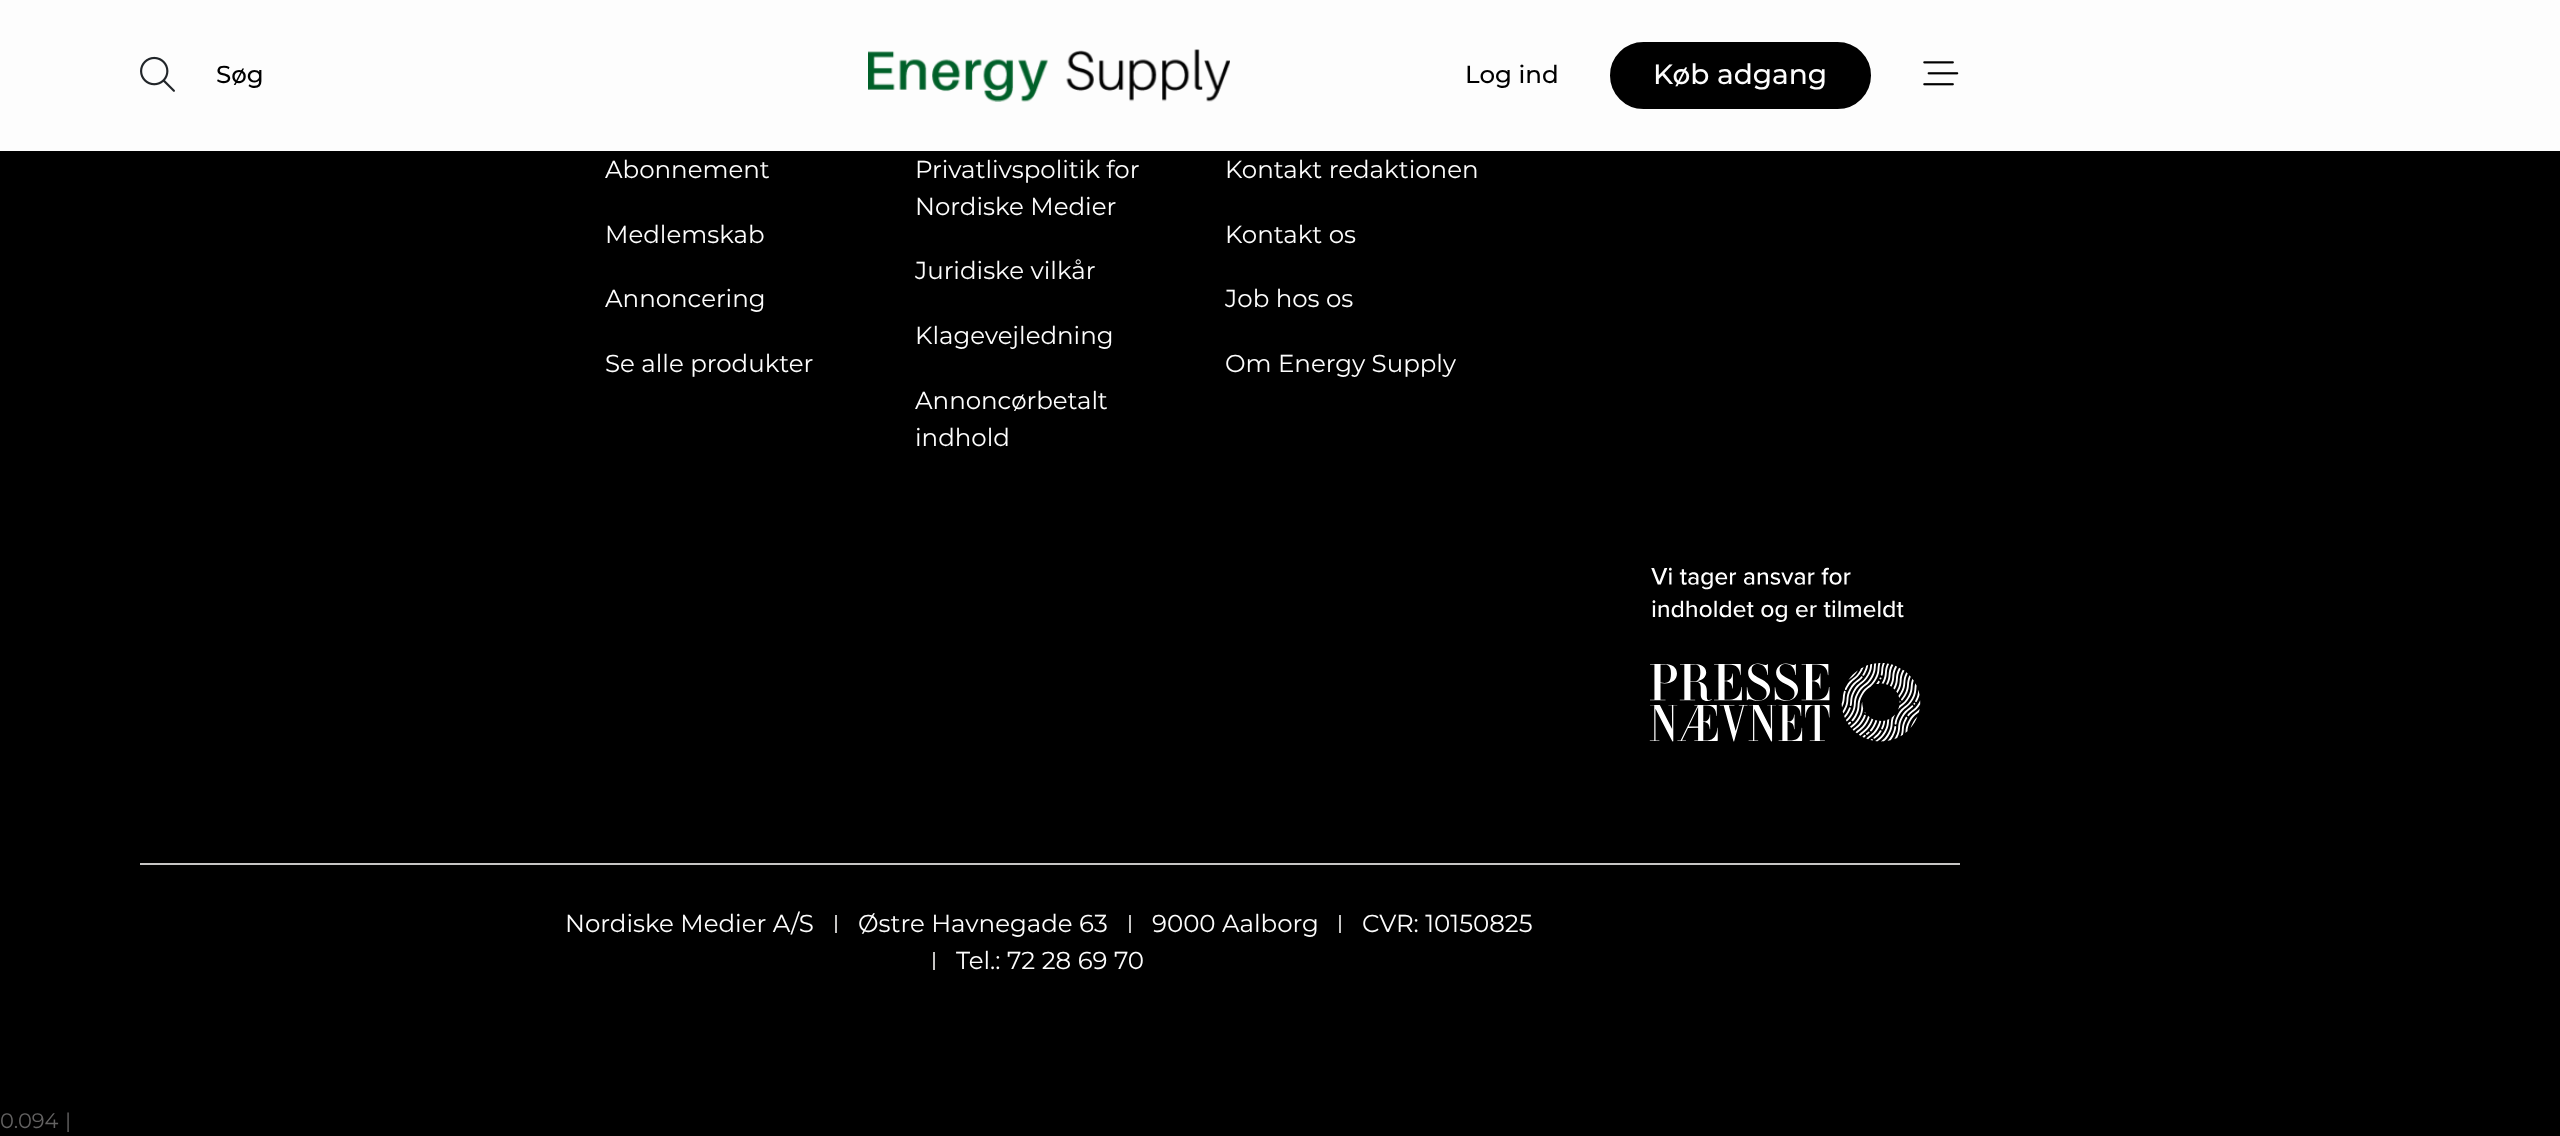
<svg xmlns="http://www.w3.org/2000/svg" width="2560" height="1136">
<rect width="100%" height="100%" fill="#000"/>
<rect width="2560" height="151" fill="#fdfdfd"/>
<image x="140" y="56" width="35" height="36" href="media/1.png"/>
<text x="216" y="83" style="font-family:Montserrat;font-size:24.5px;font-weight:500;fill:#000">Søg</text>
<image x="868" y="49" width="362" height="53" href="media/2.png"/>
<text x="1465" y="83" style="font-family:Montserrat;font-size:24.5px;font-weight:500;fill:#000">Log ind</text>
<rect x="1611" y="43" width="259" height="65" rx="32.5" fill="#000" stroke="#000" stroke-width="2"/>
<text x="1653" y="84" style="font-family:Montserrat;font-size:28px;font-weight:500;fill:#fdfdfd">Køb adgang</text>
<image x="1923" y="61" width="36" height="25" href="media/3.png"/>
<text x="605" y="178" style="font-family:Montserrat;font-size:24.5px;fill:#fdfdfd">Abonnement</text>
<text x="605" y="243" style="font-family:Montserrat;font-size:24.5px;fill:#fdfdfd">Medlemskab</text>
<text x="605" y="307" style="font-family:Montserrat;font-size:24.5px;fill:#fdfdfd">Annoncering</text>
<text x="605" y="372" style="font-family:Montserrat;font-size:24.5px;fill:#fdfdfd">Se alle produkter</text>
<text x="915" y="178" style="font-family:Montserrat;font-size:24.5px;fill:#fdfdfd">Privatlivspolitik for</text>
<text x="915" y="215" style="font-family:Montserrat;font-size:24.5px;fill:#fdfdfd">Nordiske Medier</text>
<text x="915" y="279" style="font-family:Montserrat;font-size:24.5px;fill:#fdfdfd">Juridiske vilkår</text>
<text x="915" y="344" style="font-family:Montserrat;font-size:24.5px;fill:#fdfdfd">Klagevejledning</text>
<text x="915" y="409" style="font-family:Montserrat;font-size:24.5px;fill:#fdfdfd">Annoncørbetalt</text>
<text x="915" y="446" style="font-family:Montserrat;font-size:24.5px;fill:#fdfdfd">indhold</text>
<text x="1225" y="178" style="font-family:Montserrat;font-size:24.5px;fill:#fdfdfd">Kontakt redaktionen</text>
<text x="1225" y="243" style="font-family:Montserrat;font-size:24.5px;fill:#fdfdfd">Kontakt os</text>
<text x="1225" y="307" style="font-family:Montserrat;font-size:24.5px;fill:#fdfdfd">Job hos os</text>
<text x="1225" y="372" style="font-family:Montserrat;font-size:24.5px;fill:#fdfdfd">Om Energy Supply</text>
<image x="1649" y="567" width="272" height="175" href="media/4.png"/>
<rect x="140" y="863" width="1820" height="2" fill="#c6c5c4"/>
<text x="565" y="932" style="font-family:Montserrat;font-size:24.5px;fill:#fdfdfd">Nordiske Medier A/S</text>
<rect x="835" y="915" width="2" height="18" fill="#c6c5c4"/>
<text x="858" y="932" style="font-family:Montserrat;font-size:24.5px;fill:#fdfdfd">Østre Havnegade 63</text>
<rect x="1129" y="915" width="2" height="18" fill="#c6c5c4"/>
<text x="1152" y="932" style="font-family:Montserrat;font-size:24.5px;fill:#fdfdfd">9000 Aalborg</text>
<rect x="1339" y="915" width="2" height="18" fill="#c6c5c4"/>
<text x="1362" y="932" style="font-family:Montserrat;font-size:24.5px;fill:#fdfdfd">CVR: 10150825</text>
<rect x="933" y="952" width="2" height="18" fill="#c6c5c4"/>
<text x="956" y="969" style="font-family:Montserrat;font-size:24.5px;fill:#fdfdfd">Tel.: 72 28 69 70</text>
<text x="0" y="1128" style="font-family:Montserrat;font-size:21px;fill:#636262">0.094</text>
<text x="65" y="1128" style="font-family:Montserrat;font-size:21px;fill:#636262">|</text>
</svg>
